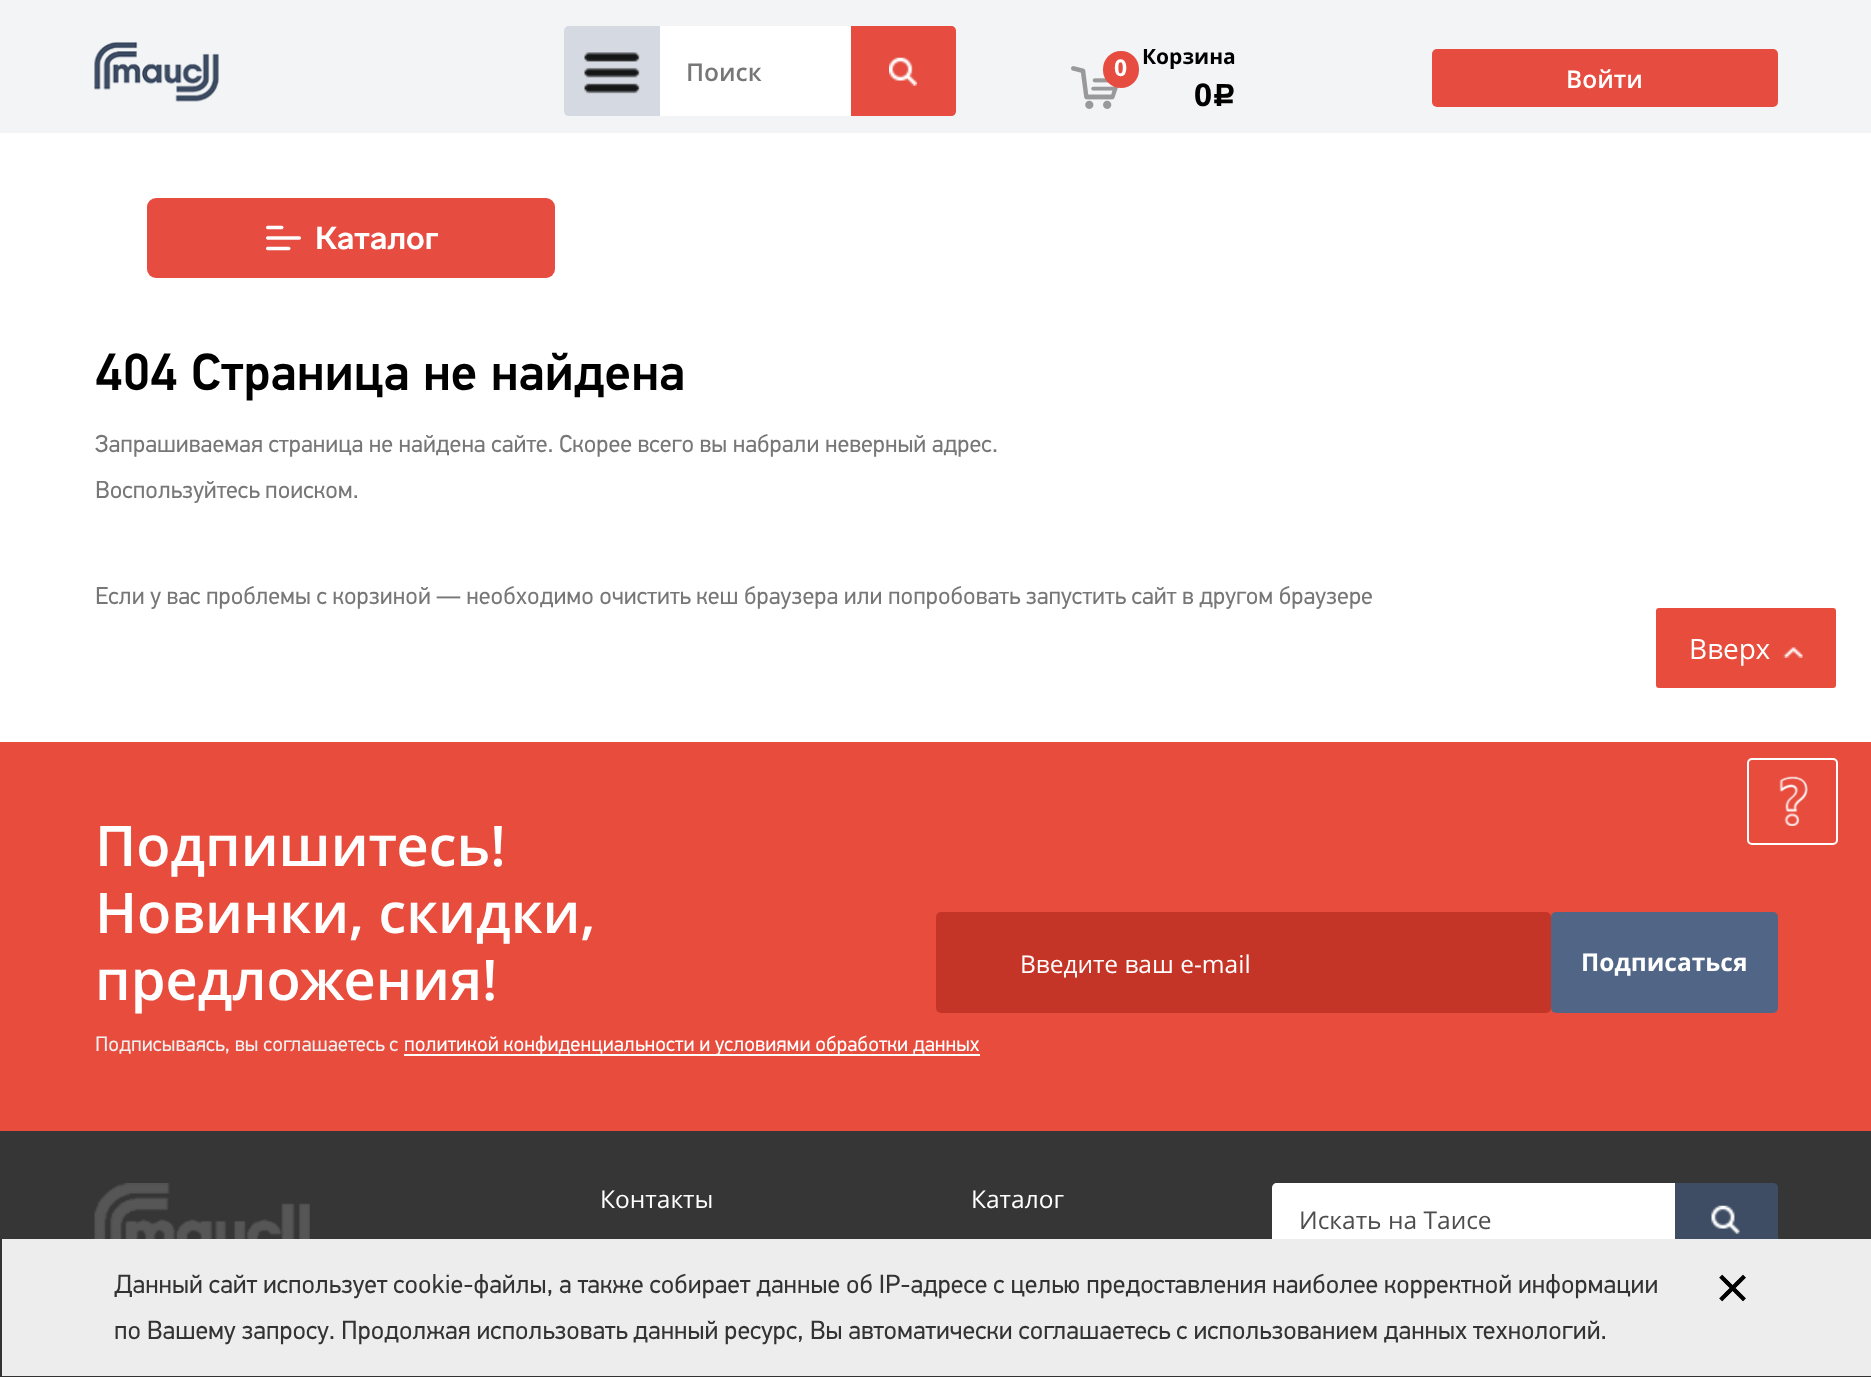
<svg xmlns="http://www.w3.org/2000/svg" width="1871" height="1377">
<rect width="100%" height="100%" fill="#fff"/>
<rect width="1871" height="133" fill="#f3f4f5"/>
<image x="94" y="42" width="125" height="60" href="media/1.png"/>
<rect x="564" y="26" width="392" height="90" rx="5" fill="#fff"/>
<path d="M569 26h91v90h-91c-3 0-5-2-5-5v-80c0-3 2-5 5-5z" fill="#d5dae2"/>
<image x="584" y="52" width="56" height="42" href="media/2.png"/>
<text x="686" y="81" style="font-family:Open Sans;font-size:24.5px;font-weight:600;fill:#777">Поиск</text>
<path d="M851 26h100c3 0 5 2 5 5v80c0 3-2 5-5 5h-100z" fill="#e64c40"/>
<image x="889" y="57" width="28" height="29" href="media/3.png"/>
<image x="1071" y="66" width="47" height="43" href="media/4.png"/>
<rect x="1103" y="51" width="36" height="37" rx="18" fill="#e64c40"/>
<text x="1114" y="76" style="font-family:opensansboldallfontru;font-size:23px;font-weight:bold;fill:#fff">0</text>
<text x="1142" y="64" style="font-family:opensansboldallfontru;font-size:21px;font-weight:bold;fill:#000">Корзина</text>
<text x="1194" y="106" style="font-family:opensansboldallfontru;font-size:31.5px;font-weight:bold;fill:#000">0</text>
<text x="1212" y="106" style="font-family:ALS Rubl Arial;font-size:31.5px;font-weight:bold;fill:#000">Р</text>
<rect x="1432" y="49" width="346" height="58" rx="5" fill="#e64c40"/>
<text x="1566" y="88" style="font-family:Open Sans;font-size:24.5px;font-weight:600;fill:#fff">Войти</text>
<rect x="147" y="198" width="408" height="80" rx="9" fill="#e64c40"/>
<image x="266" y="225" width="35" height="26" href="media/5.png"/>
<text x="315" y="249" style="font-family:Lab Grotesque;font-size:31.5px;font-weight:bold;fill:#fff">Каталог</text>
<text x="95" y="390" style="font-family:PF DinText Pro;font-size:52.5px;font-weight:500;fill:#000">404 Страница не найдена</text>
<text x="95" y="452" style="font-family:PF DinText Pro;font-size:24.5px;fill:#777">Запрашиваемая страница не найдена сайте. Скорее всего вы набрали неверный адрес.</text>
<text x="95" y="498" style="font-family:PF DinText Pro;font-size:24.5px;fill:#777">Воспользуйтесь поиском.</text>
<text x="95" y="604" style="font-family:PF DinText Pro;font-size:24.5px;fill:#777">Если у вас проблемы с корзиной — необходимо очистить кеш браузера или попробовать запустить сайт в другом браузере</text>
<rect y="742" width="1871" height="389" fill="#e84c3d"/>
<text x="95" y="866" style="font-family:Open Sans;font-size:56px;font-weight:600;fill:#fff">Подпишитесь!</text>
<text x="95" y="933" style="font-family:Open Sans;font-size:56px;font-weight:600;fill:#fff">Новинки, скидки,</text>
<text x="95" y="1000" style="font-family:Open Sans;font-size:56px;font-weight:600;fill:#fff">предложения!</text>
<rect x="936" y="912" width="615" height="101" rx="5" fill="#c53527"/>
<text x="1020" y="973" style="font-family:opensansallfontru;font-size:24.5px;fill:#fff">Введите ваш e-mail</text>
<rect x="1551" y="912" width="227" height="101" rx="5" fill="#516686"/>
<text x="1581" y="971" style="font-family:opensansboldallfontru;font-size:24.5px;font-weight:bold;fill:#fff">Подписаться</text>
<text x="95" y="1051" style="font-family:PF DinText Pro;font-size:21px;fill:#efefef">Подписываясь, вы соглашаетесь с</text>
<rect x="404" y="1054" width="576" height="2" fill="#fff"/>
<text x="404" y="1051" style="font-family:PF DinText Pro;font-size:21px;fill:#fff">политикой конфиденциальности и условиями обработки данных</text>
<rect y="1131" width="1871" height="108" fill="#363636"/>
<path d="M1277 1183h398v74h-398c-3 0-5-2-5-5v-64c0-3 2-5 5-5z" fill="#fff"/>
<path d="M1675 1183h98c3 0 5 2 5 5v64c0 3-2 5-5 5h-98z" fill="#3e4d63"/>
<rect x="2" y="1239" width="1869" height="137" fill="#ededed"/>
<rect y="1376" width="1871" height="1" fill="#333"/>
<rect y="1239" width="2" height="138" fill="#333"/>
<text x="114" y="1293" style="font-family:PF DinText Pro;font-size:26.25px;fill:#333">Данный сайт использует cookie-файлы, а также собирает данные об IP-адресе с целью предоставления наиболее корректной информации</text>
<image x="1719" y="1274" width="27" height="28" href="media/6.png"/>
<text x="114" y="1339" style="font-family:PF DinText Pro;font-size:26.25px;fill:#333">по Вашему запросу. Продолжая использовать данный ресурс, Вы автоматически соглашаетесь с использованием данных технологий.</text>
<rect x="1655" y="607" width="182" height="82" rx="4" fill="#e84c3d" stroke="#fff" stroke-width="2"/>
<text x="1689" y="659" style="font-family:opensansallfontru;font-size:28px;fill:#fff">Вверх</text>
<image x="1783" y="647" width="20" height="11" href="media/7.png"/>
<rect x="1748" y="759" width="89" height="85" rx="4" fill="none" stroke="#fff" stroke-width="2"/>
<image x="1779" y="776" width="29" height="50" href="media/8.png"/>
<image x="94" y="1183" width="216" height="56" href="media/9.png"/>
<text x="600" y="1208" style="font-family:opensansallfontru;font-size:24.5px;fill:#fff">Контакты</text>
<text x="971" y="1208" style="font-family:opensansallfontru;font-size:24.5px;fill:#fff">Каталог</text>
<text x="1299" y="1229" style="font-family:opensansallfontru;font-size:24.5px;fill:#4d4d4d">Искать на Таисе</text>
<image x="1711" y="1205" width="29" height="29" href="media/10.png"/>
</svg>
